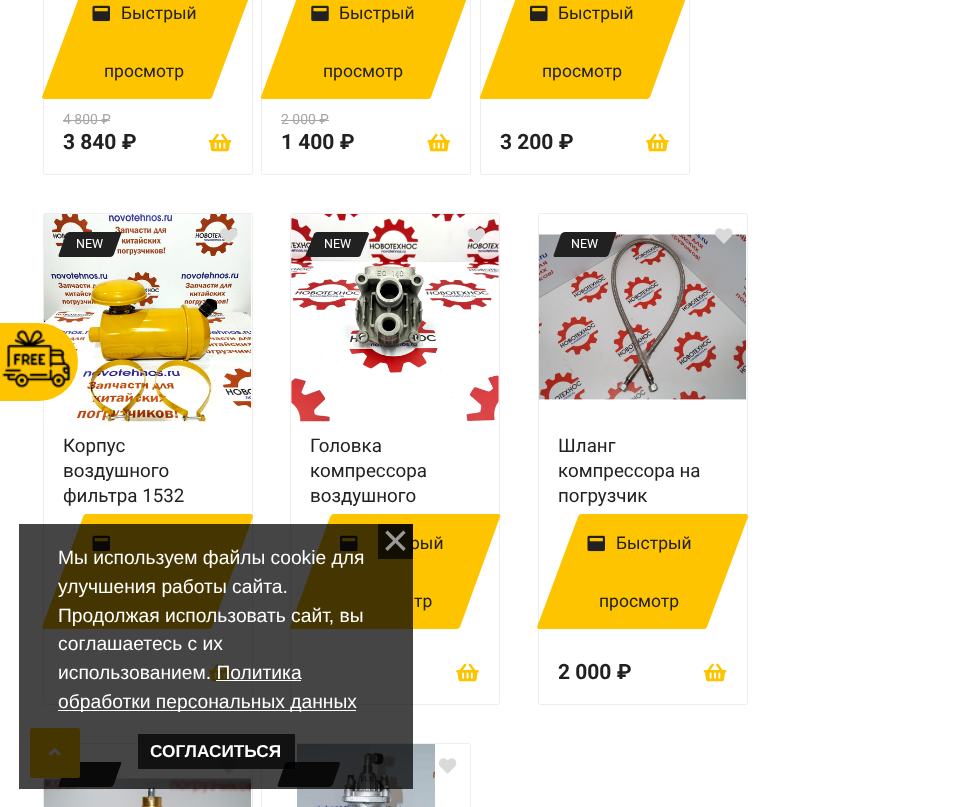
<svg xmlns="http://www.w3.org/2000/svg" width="959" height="807">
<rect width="100%" height="100%" fill="#fff"/>
<rect x="43.5" y="213.5" width="209" height="491" rx="2" fill="none" stroke="#ededed"/>
<image x="43" y="214" width="209" height="208" href="media/8.png"/>
<rect x="-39" y="323" width="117" height="78" rx="39" fill="#ffc400"/>
<image x="2" y="329" width="69" height="59" href="media/1.png"/>
<rect x="43.5" y="-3.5" width="209" height="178" rx="2" fill="none" stroke="#ededed"/>
<path d="M86-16h165c1 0 2 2 2 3l-41 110c0 1-2 2-3 2h-165c-1 0-2-1-2-2l41-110c0-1 2-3 3-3z" fill="#ffc400"/>
<image x="92" y="5" width="18" height="17" href="media/2.png"/>
<text x="121" y="19" style="font-family:Roboto;font-size:17.5px;fill:#212121">Быстрый</text>
<text x="104" y="77" style="font-family:Roboto;font-size:17.5px;fill:#212121">просмотр</text>
<text x="63" y="124" style="font-family:Roboto;font-size:14px;fill:#a7a7a7">4 800 ₽</text>
<rect x="63" y="120" width="47" height="1" fill="#a7a7a7"/>
<text x="63" y="149" style="font-family:Roboto;font-size:21px;font-weight:bold;fill:#212121">3 840 ₽</text>
<image x="208" y="133" width="24" height="19" href="media/3.png"/>
<rect x="261.5" y="-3.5" width="209" height="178" rx="2" fill="none" stroke="#ededed"/>
<path d="M305-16h165c1 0 2 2 1 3l-40 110c0 1-2 2-3 2h-165c-2 0-2-1-2-2l40-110c1-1 2-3 4-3z" fill="#ffc400"/>
<image x="311" y="5" width="18" height="17" href="media/4.png"/>
<text x="339" y="19" style="font-family:Roboto;font-size:17.5px;fill:#212121">Быстрый</text>
<text x="323" y="77" style="font-family:Roboto;font-size:17.5px;fill:#212121">просмотр</text>
<text x="281" y="124" style="font-family:Roboto;font-size:14px;fill:#a7a7a7">2 000 ₽</text>
<rect x="281" y="120" width="48" height="1" fill="#a7a7a7"/>
<text x="281" y="149" style="font-family:Roboto;font-size:21px;font-weight:bold;fill:#212121">1 400 ₽</text>
<image x="427" y="133" width="23" height="19" href="media/5.png"/>
<rect x="480.5" y="-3.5" width="209" height="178" rx="2" fill="none" stroke="#ededed"/>
<path d="M523-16h165c2 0 3 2 2 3l-40 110c-1 1-2 2-3 2h-165c-2 0-3-1-2-2l40-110c1-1 2-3 3-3z" fill="#ffc400"/>
<image x="530" y="5" width="18" height="17" href="media/6.png"/>
<text x="558" y="19" style="font-family:Roboto;font-size:17.5px;fill:#212121">Быстрый</text>
<text x="542" y="77" style="font-family:Roboto;font-size:17.5px;fill:#212121">просмотр</text>
<text x="500" y="149" style="font-family:Roboto;font-size:21px;font-weight:bold;fill:#212121">3 200 ₽</text>
<image x="646" y="133" width="23" height="19" href="media/7.png"/>
<path d="M70 232h50c1 0 2 1 1 2l-7 20c-1 2-2 3-4 3h-50c-1 0-2-1-1-3l7-20c1-1 2-2 4-2z" fill="#212121"/>
<text x="76" y="248" style="font-family:Roboto;font-size:12.5px;fill:#fff">NEW</text>
<image x="220" y="228" width="18" height="16" href="media/9.png"/>
<text x="63" y="452" style="font-family:Roboto;font-size:18.75px;fill:#212121">Корпус</text>
<text x="63" y="477" style="font-family:Roboto;font-size:18.75px;fill:#212121">воздушного</text>
<text x="63" y="502" style="font-family:Roboto;font-size:18.75px;fill:#212121">фильтра 1532</text>
<path d="M86 514h165c1 0 2 2 2 3l-41 110c0 1-2 2-3 2h-165c-1 0-2-1-2-2l41-110c0-1 2-3 3-3z" fill="#ffc400"/>
<image x="92" y="535" width="18" height="17" href="media/2.png"/>
<image x="208" y="663" width="24" height="19" href="media/3.png"/>
<rect x="290.5" y="213.5" width="209" height="491" rx="2" fill="none" stroke="#ededed"/>
<image x="291" y="214" width="208" height="208" href="media/10.png"/>
<path d="M317 232h50c1 0 2 1 2 2l-8 20c0 2-2 3-3 3h-50c-1 0-2-1-2-3l8-20c0-1 2-2 3-2z" fill="#212121"/>
<text x="324" y="248" style="font-family:Roboto;font-size:12.5px;fill:#fff">NEW</text>
<image x="467" y="228" width="18" height="16" href="media/11.png"/>
<text x="310" y="452" style="font-family:Roboto;font-size:18.75px;fill:#212121">Головка</text>
<text x="310" y="477" style="font-family:Roboto;font-size:18.75px;fill:#212121">компрессора</text>
<text x="310" y="502" style="font-family:Roboto;font-size:18.75px;fill:#212121">воздушного</text>
<path d="M333 514h165c2 0 3 2 2 3l-40 110c-1 1-2 2-3 2h-165c-2 0-3-1-2-2l40-110c1-1 2-3 3-3z" fill="#ffc400"/>
<image x="340" y="535" width="18" height="17" href="media/6.png"/>
<text x="410" y="549" style="font-family:Roboto;font-size:17.5px;fill:#212121">рый</text>
<text x="414" y="607" style="font-family:Roboto;font-size:17.5px;fill:#212121">тр</text>
<image x="456" y="663" width="23" height="19" href="media/7.png"/>
<rect x="538.5" y="213.5" width="209" height="491" rx="2" fill="none" stroke="#ededed"/>
<image x="538" y="214" width="209" height="186" href="media/12.png"/>
<path d="M565 232h50c1 0 2 1 1 2l-7 20c-1 2-2 3-4 3h-50c-1 0-2-1-1-3l7-20c1-1 2-2 4-2z" fill="#212121"/>
<text x="571" y="248" style="font-family:Roboto;font-size:12.5px;fill:#fff">NEW</text>
<image x="715" y="228" width="18" height="16" href="media/13.png"/>
<text x="558" y="452" style="font-family:Roboto;font-size:18.75px;fill:#212121">Шланг</text>
<text x="558" y="477" style="font-family:Roboto;font-size:18.75px;fill:#212121">компрессора на</text>
<text x="558" y="502" style="font-family:Roboto;font-size:18.75px;fill:#212121">погрузчик</text>
<path d="M581 514h165c1 0 2 2 2 3l-41 110c0 1-2 2-3 2h-165c-1 0-2-1-2-2l41-110c0-1 2-3 3-3z" fill="#ffc400"/>
<image x="587" y="535" width="18" height="17" href="media/2.png"/>
<text x="616" y="549" style="font-family:Roboto;font-size:17.5px;fill:#212121">Быстрый</text>
<text x="599" y="607" style="font-family:Roboto;font-size:17.5px;fill:#212121">просмотр</text>
<text x="558" y="679" style="font-family:Roboto;font-size:21px;font-weight:bold;fill:#212121">2 000 ₽</text>
<image x="703" y="663" width="24" height="19" href="media/3.png"/>
<rect x="43.5" y="743.5" width="209" height="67" rx="2" fill="none" stroke="#ededed"/>
<image x="43" y="744" width="209" height="63" href="media/14.png"/>
<path d="M70 762h50c1 0 2 1 1 2l-7 20c-1 2-2 3-4 3h-50c-1 0-2-1-1-3l7-20c1-1 2-2 4-2z" fill="#212121"/>
<image x="220" y="758" width="18" height="16" href="media/15.png"/>
<rect x="261.5" y="743.5" width="209" height="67" rx="2" fill="none" stroke="#ededed"/>
<image x="297" y="744" width="173" height="63" href="media/16.png"/>
<path d="M288 762h50c2 0 2 1 2 2l-7 20c-1 2-2 3-4 3h-50c-1 0-2-1-1-3l7-20c0-1 2-2 3-2z" fill="#212121"/>
<image x="438" y="758" width="19" height="16" href="media/17.png"/>
<rect x="30" y="728" width="50" height="50" rx="2.5" fill="#ffc400"/>
<image x="48" y="748" width="13" height="8" href="media/18.png"/>
<rect x="19" y="524" width="394" height="265" fill="#000000ba"/>
<rect x="378" y="524" width="35" height="35" fill="#000000ba"/>
<text x="382" y="556" style="font-family:Liberation Sans;font-size:46px;fill:#999">×</text>
<rect x="138" y="734" width="157" height="35" fill="#000000ba"/>
<text x="150" y="757" style="font-family:Liberation Sans;font-size:17.25px;font-weight:bold;fill:#fff">СОГЛАСИТЬСЯ</text>
<text x="58" y="564" style="font-family:Liberation Sans;font-size:19.25px;fill:#fff">Мы используем файлы cookie для</text>
<text x="58" y="593" style="font-family:Liberation Sans;font-size:19.25px;fill:#fff">улучшения работы сайта.</text>
<text x="58" y="622" style="font-family:Liberation Sans;font-size:19.25px;fill:#fff">Продолжая использовать сайт, вы</text>
<text x="58" y="650" style="font-family:Liberation Sans;font-size:19.25px;fill:#fff">соглашаетесь с их</text>
<text x="58" y="679" style="font-family:Liberation Sans;font-size:19.25px;fill:#fff">использованием. Политика</text>
<rect x="58" y="710" width="298" height="1" fill="#fff"/>
<text x="58" y="708" style="font-family:Liberation Sans;font-size:19.25px;fill:#fff">обработки персональных данных</text>
<rect x="216" y="680" width="85" height="1" fill="#fff"/>
</svg>
